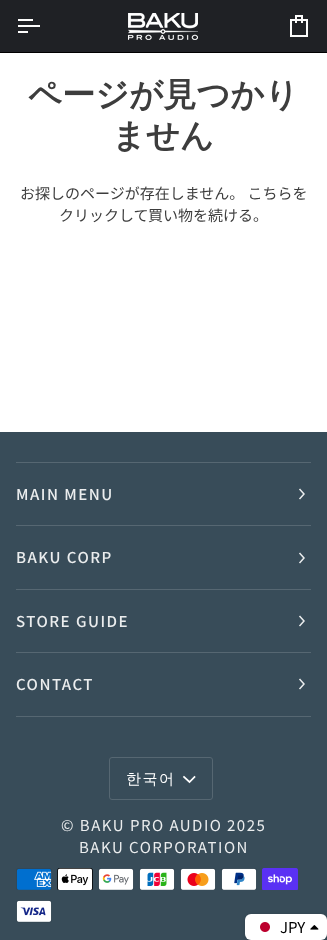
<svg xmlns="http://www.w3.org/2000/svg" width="327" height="940">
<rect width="100%" height="100%" fill="#fff"/>
<rect width="327" height="52" fill="#1f2125"/>
<rect y="52" width="327" height="1" fill="#000"/>
<path d="M32 20h-13m20 6h-20m8 6h-8" fill="none" stroke="#fcfcfc" stroke-width="2" stroke-linecap="square"/>
<image x="128" y="13" width="70" height="27" href="media/1.png"/>
<path d="M291 20h16v16h-16zm5 3v-7h6v7" fill="none" stroke="#fcfcfc" stroke-width="2"/>
<text x="28" y="106" style="font-family:WenQuanYi Zen Hei;font-size:33.25px;font-weight:bold;fill:#3d3d3d">ページが見つかり</text>
<text x="112" y="147" style="font-family:WenQuanYi Zen Hei;font-size:33.25px;font-weight:bold;fill:#3d3d3d">ません</text>
<text x="20" y="199" style="font-family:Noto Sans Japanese;font-size:15px;fill:#3d3d3d">お探しのページが存在しません。 こちらを</text>
<text x="59" y="221" style="font-family:Noto Sans Japanese;font-size:15px;fill:#3d3d3d">クリックして</text>
<text x="148" y="221" style="font-family:Noto Sans Japanese;font-size:15px;fill:#3d3d3d">買い物を続ける。</text>
<rect y="432" width="327" height="508" fill="#384c59"/>
<rect x="16" y="462" width="295" height="1" fill="#566772"/>
<rect x="16" y="525" width="295" height="1" fill="#566772"/>
<text x="16" y="500" style="font-family:Noto Sans Japanese;font-size:15px;font-weight:500;letter-spacing:1.5px;fill:#ebedee">MAIN MENU</text>
<path d="M300 498.5l4-4.5l-4-4.5" fill="none" stroke="#ebedee" stroke-width="1.5" stroke-linecap="square"/>
<rect x="16" y="589" width="295" height="1" fill="#566772"/>
<text x="16" y="563" style="font-family:Noto Sans Japanese;font-size:15px;font-weight:500;letter-spacing:1.5px;fill:#ebedee">BAKU CORP</text>
<path d="M300 562.5l4-4.5l-4-4.5" fill="none" stroke="#ebedee" stroke-width="1.5" stroke-linecap="square"/>
<rect x="16" y="652" width="295" height="1" fill="#566772"/>
<text x="16" y="627" style="font-family:Noto Sans Japanese;font-size:15px;font-weight:500;letter-spacing:1.5px;fill:#ebedee">STORE GUIDE</text>
<path d="M300 625.5l4-4.5l-4-4.5" fill="none" stroke="#ebedee" stroke-width="1.5" stroke-linecap="square"/>
<rect x="16" y="716" width="295" height="1" fill="#566772"/>
<text x="16" y="690" style="font-family:Noto Sans Japanese;font-size:15px;font-weight:500;letter-spacing:1.5px;fill:#ebedee">CONTACT</text>
<path d="M300 688.5l4-4.5l-4-4.5" fill="none" stroke="#ebedee" stroke-width="1.5" stroke-linecap="square"/>
<rect x="109.5" y="757.5" width="103" height="42" rx="2.5" fill="none" stroke="#566772"/>
<text x="126" y="784" style="font-family:WenQuanYi Zen Hei;font-size:15px;font-weight:500;letter-spacing:1.5px;fill:#fff">한국어</text>
<path d="M184 777l5.5 5l5-5" fill="none" stroke="#fff" stroke-width="1.7" stroke-linecap="square"/>
<text x="61" y="831" style="font-family:Noto Sans Japanese;font-size:15px;letter-spacing:1.5px;fill:#ebedee">© BAKU PRO AUDIO</text>
<text x="227" y="831" style="font-family:Noto Sans Japanese;font-size:15px;letter-spacing:1.5px;fill:#ebedee">2025</text>
<text x="79" y="853" style="font-family:Noto Sans Japanese;font-size:15px;letter-spacing:1.5px;fill:#ebedee">BAKU CORPORATION</text>
<image x="16" y="868" width="36" height="22" href="media/2.png"/>
<image x="57" y="868" width="36" height="22" href="media/3.png"/>
<image x="98" y="868" width="36" height="22" href="media/4.png"/>
<image x="139" y="868" width="36" height="22" href="media/5.png"/>
<image x="180" y="868" width="36" height="22" href="media/6.png"/>
<image x="221" y="868" width="36" height="22" href="media/7.png"/>
<image x="262" y="868" width="36" height="22" href="media/8.png"/>
<image x="16" y="900" width="36" height="23" href="media/9.png"/>
<rect x="246" y="915" width="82" height="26" rx="6" fill="#00000033" filter="blur(2px)"/>
<rect x="245" y="914" width="82" height="26" rx="6" fill="#fff"/>
<image x="260" y="922" width="10" height="10" href="media/10.png"/>
<text x="280" y="933" style="font-family:Noto Sans Japanese;font-size:15px;fill:#000">JPY</text>
<image x="310" y="925" width="9" height="5" href="media/11.png"/>
</svg>
